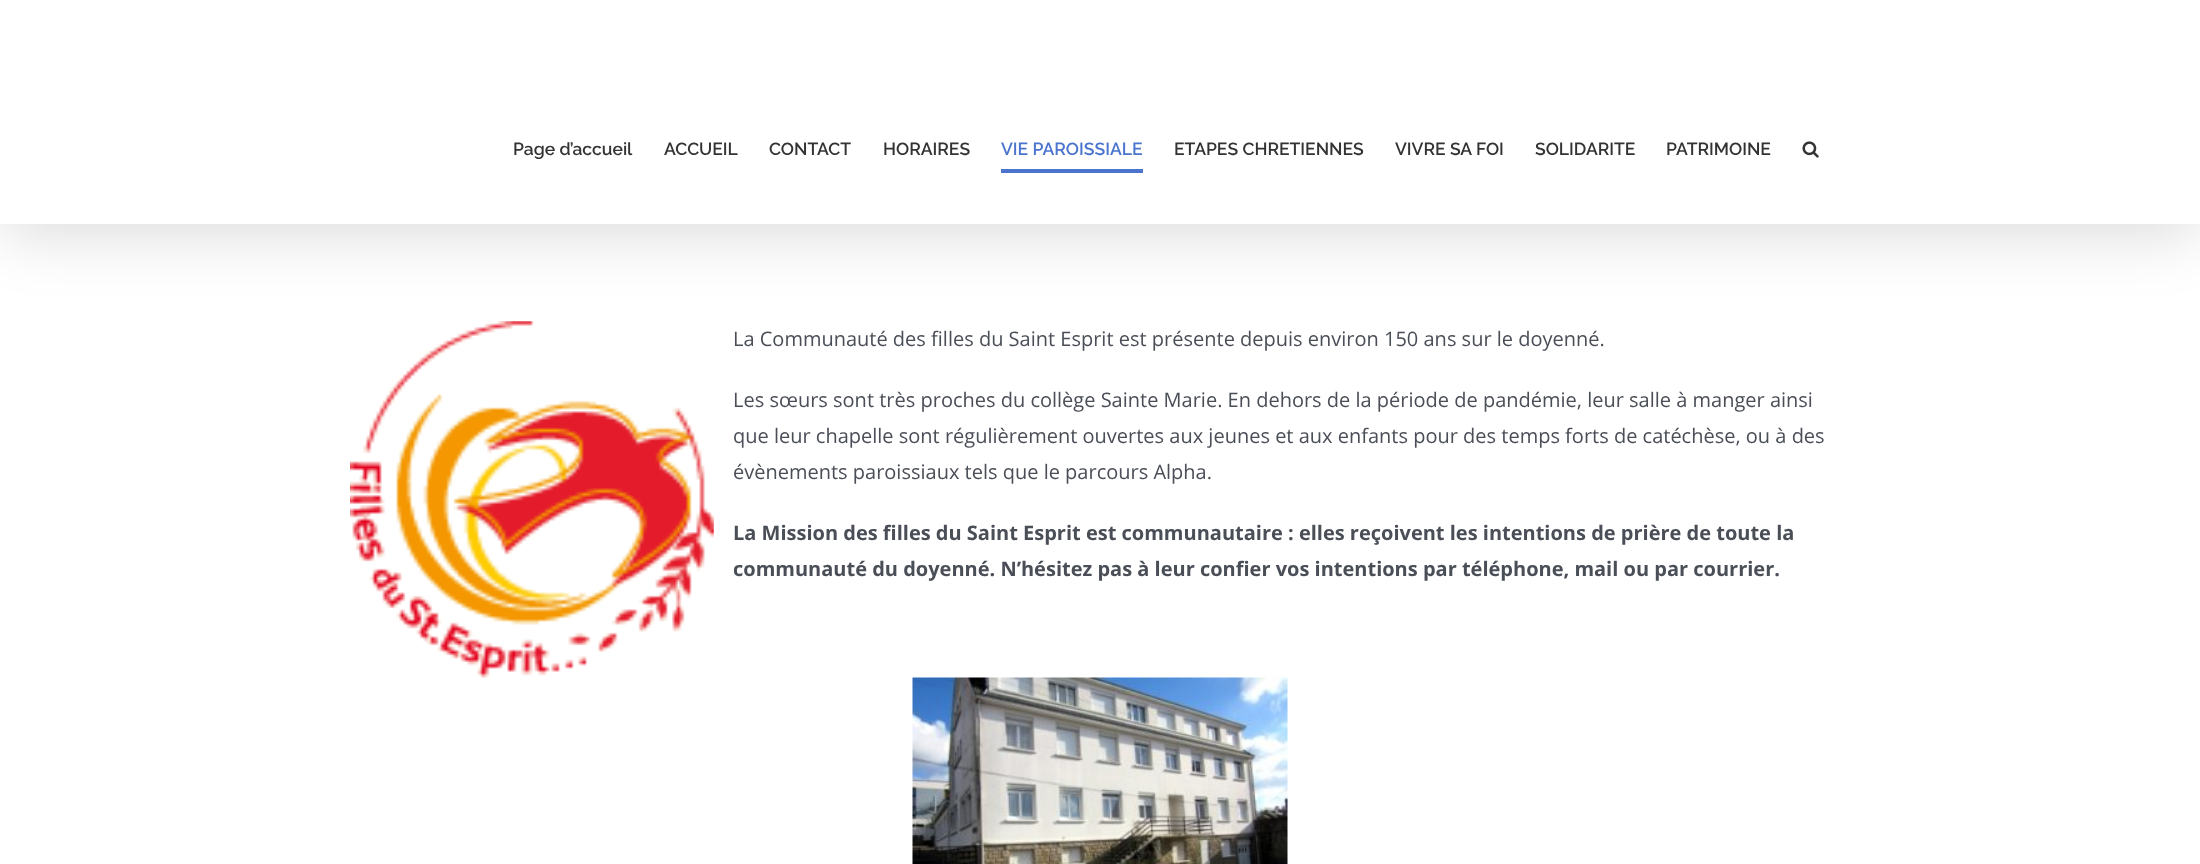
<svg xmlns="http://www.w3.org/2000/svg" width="2200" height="864">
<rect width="100%" height="100%" fill="#fff"/>
<image x="350" y="321" width="364" height="357" href="media/2.png"/>
<rect x="3" y="15" width="2195" height="219" fill="#00000024" filter="blur(31px)"/>
<rect width="2200" height="224" fill="#fff"/>
<text x="513" y="155" style="font-family:Raleway;font-size:17.5px;font-weight:600;fill:#333">Page d’accueil</text>
<text x="664" y="155" style="font-family:Raleway;font-size:17.5px;font-weight:600;fill:#333">ACCUEIL</text>
<text x="769" y="155" style="font-family:Raleway;font-size:17.5px;font-weight:600;fill:#333">CONTACT</text>
<text x="883" y="155" style="font-family:Raleway;font-size:17.5px;font-weight:600;fill:#333">HORAIRES</text>
<text x="1001" y="155" style="font-family:Raleway;font-size:17.5px;font-weight:600;fill:#4a74ce">VIE PAROISSIALE</text>
<rect x="1001" y="169" width="142" height="4" fill="#4a74ce"/>
<text x="1174" y="155" style="font-family:Raleway;font-size:17.5px;font-weight:600;fill:#333">ETAPES CHRETIENNES</text>
<text x="1395" y="155" style="font-family:Raleway;font-size:17.5px;font-weight:600;fill:#333">VIVRE SA FOI</text>
<text x="1535" y="155" style="font-family:Raleway;font-size:17.5px;font-weight:600;fill:#333">SOLIDARITE</text>
<text x="1666" y="155" style="font-family:Raleway;font-size:17.5px;font-weight:600;fill:#333">PATRIMOINE</text>
<image x="1802" y="141" width="17" height="17" href="media/1.png"/>
<text x="733" y="346" style="font-family:Open Sans;font-size:20px;fill:#4a4e57">La Communauté des filles du Saint Esprit est présente depuis environ 150 ans sur le doyenné.</text>
<text x="733" y="407" style="font-family:Open Sans;font-size:20px;fill:#4a4e57">Les sœurs sont très proches du collège Sainte Marie. En dehors de la période de pandémie, leur salle à manger ainsi</text>
<text x="733" y="443" style="font-family:Open Sans;font-size:20px;fill:#4a4e57">que leur chapelle sont régulièrement ouvertes aux jeunes et aux enfants pour des temps forts de catéchèse, ou à des</text>
<text x="733" y="479" style="font-family:Open Sans;font-size:20px;fill:#4a4e57">évènements paroissiaux tels que le parcours Alpha.</text>
<text x="733" y="540" style="font-family:Open Sans;font-size:20px;font-weight:bold;fill:#4a4e57">La Mission des filles du Saint Esprit est communautaire : elles reçoivent les intentions de prière de toute la</text>
<text x="733" y="576" style="font-family:Open Sans;font-size:20px;font-weight:bold;fill:#4a4e57">communauté du doyenné. N’hésitez pas à leur confier vos intentions par téléphone, mail ou par courrier.</text>
<image x="912" y="677" width="376" height="187" href="media/3.png"/>
</svg>
